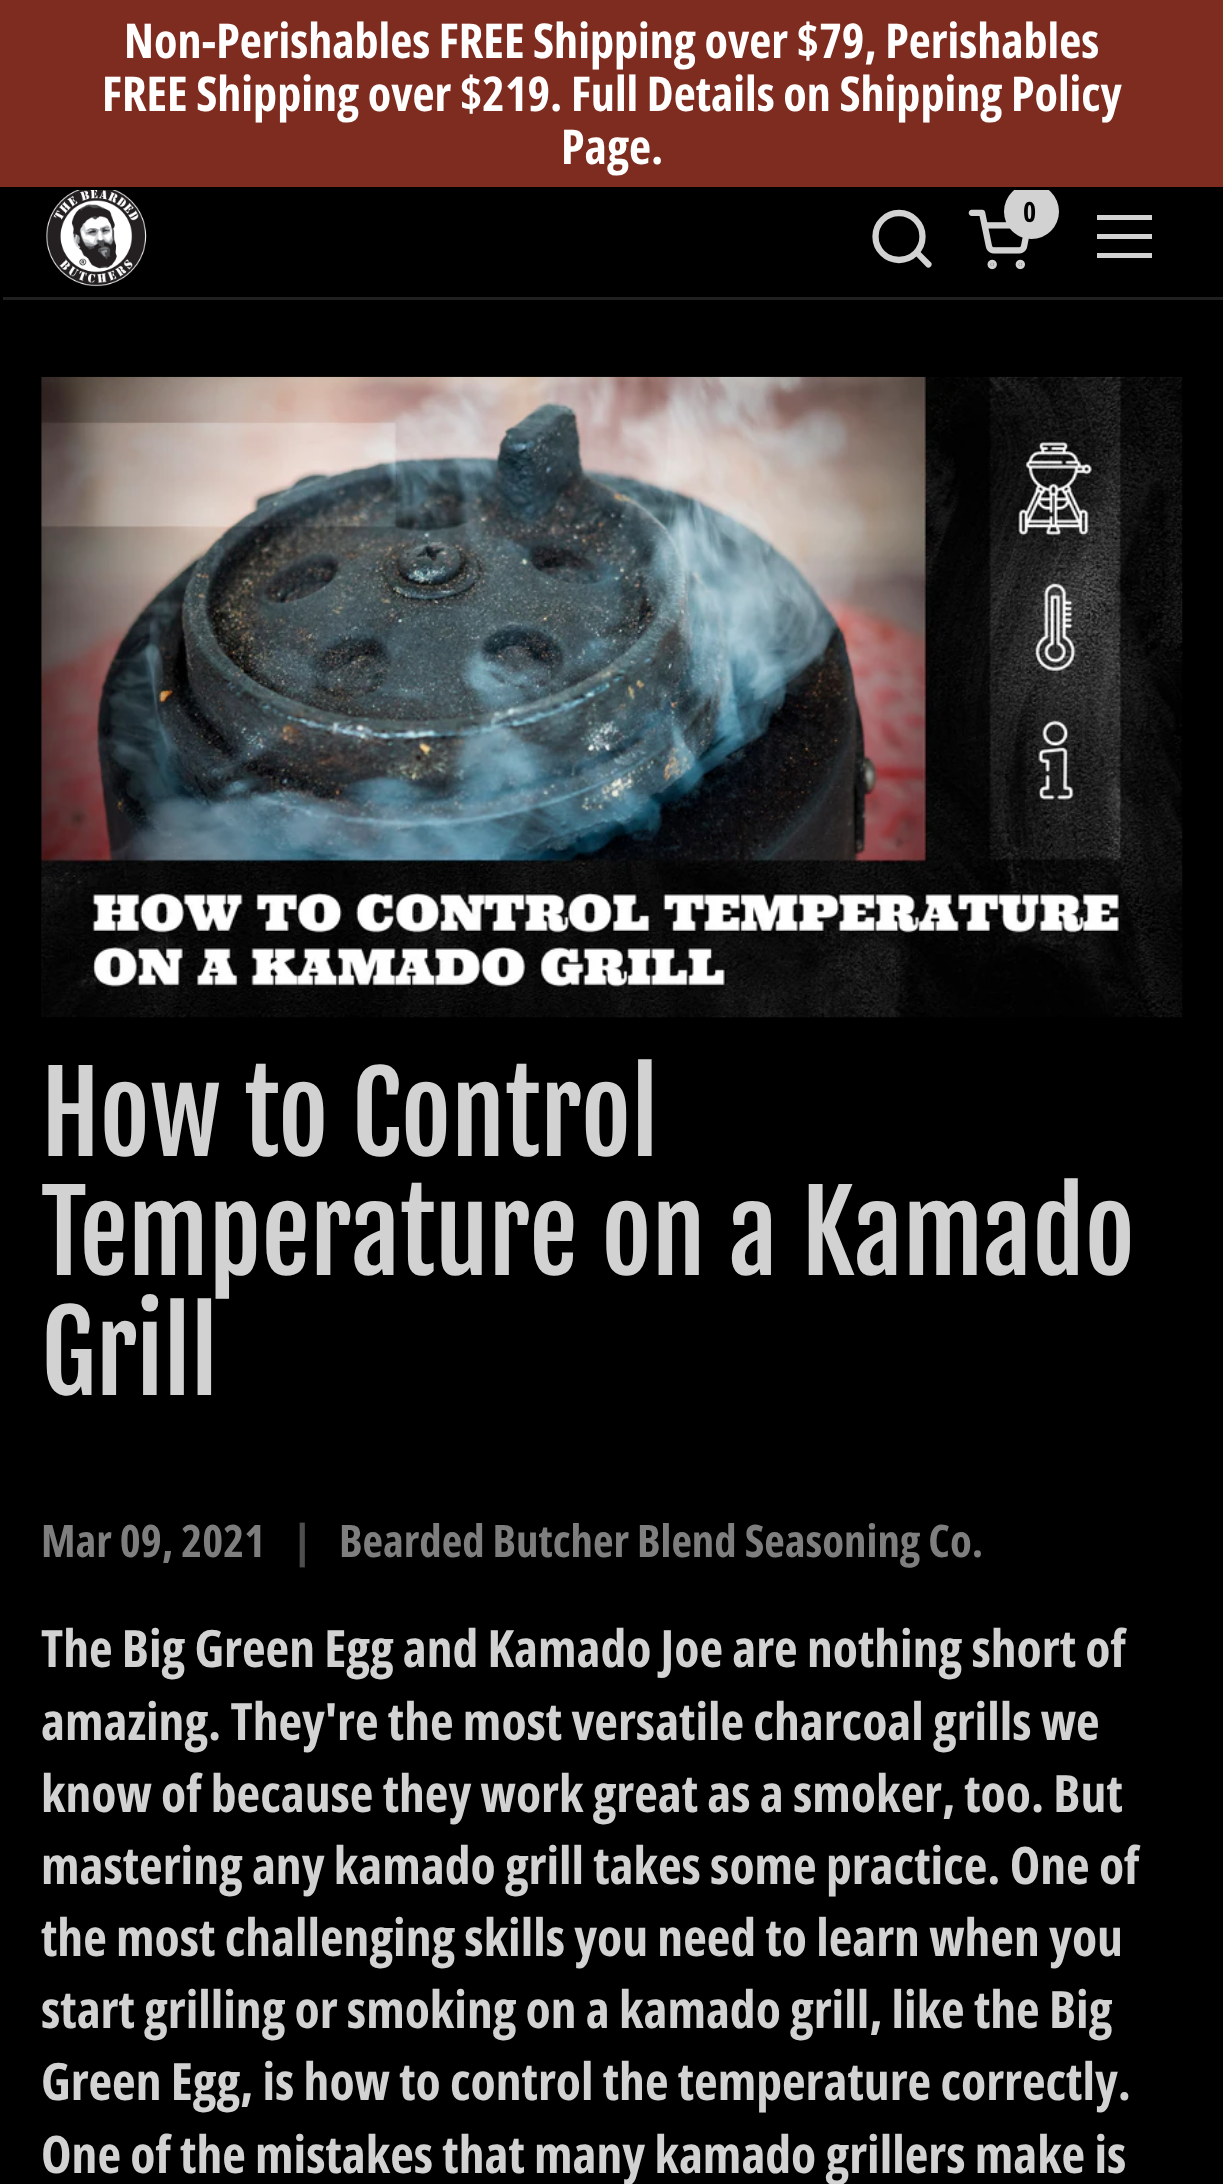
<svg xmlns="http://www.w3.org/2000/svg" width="1223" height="2184">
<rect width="100%" height="100%" fill="#000"/>
<circle cx="1031.5" cy="211.5" r="27.5" fill="#d2d2d2"/>
<rect width="1223" height="187" fill="#7e2c1f"/>
<rect x="1014" y="187" width="35" height="3" fill="#000"/>
<text x="124" y="58" style="font-family:Open Sans Condensed;font-size:48.1px;font-weight:bold;fill:#fff">Non-Perishables FREE Shipping over $79, Perishables</text>
<text x="102" y="111" style="font-family:Open Sans Condensed;font-size:48.1px;font-weight:bold;fill:#fff">FREE Shipping over $219. Full Details on Shipping Policy</text>
<text x="561" y="164" style="font-family:Open Sans Condensed;font-size:48.1px;font-weight:bold;fill:#fff">Page.</text>
<image x="46" y="190" width="101" height="97" href="media/1.png"/>
<circle cx="899" cy="236.5" r="23.5" fill="none" stroke="#d2d2d2" stroke-width="6.3"/>
<path d="M920 251.5l-2.5-2.5l-4.5 4.5l2.5 2zm6.5 15.5c2.5 2.5 7-2 4.5-4.5zm-11-11.5l11 11.5l4.5-4.5l-11-11z" fill="#d2d2d2"/>
<text x="1023" y="222" style="font-family:Open Sans Condensed;font-size:28px;font-weight:bold;fill:#000">0</text>
<image x="968" y="209" width="62" height="61" href="media/2.png"/>
<rect x="1097" y="215" width="55" height="5" fill="#d2d2d2"/>
<rect x="1097" y="234" width="55" height="5" fill="#d2d2d2"/>
<rect x="1097" y="253" width="55" height="5" fill="#d2d2d2"/>
<rect x="3" y="297" width="1220" height="3" fill="#202020"/>
<image x="41" y="376" width="1142" height="642" href="media/3.png"/>
<text x="41" y="1156" style="font-family:Fjalla One;font-size:109px;fill:#d2d2d2">How to Control</text>
<text x="41" y="1275" style="font-family:Fjalla One;font-size:109px;fill:#d2d2d2">Temperature on a Kamado</text>
<text x="41" y="1395" style="font-family:Fjalla One;font-size:109px;fill:#d2d2d2">Grill</text>
<text x="41" y="1557" style="font-family:Open Sans Condensed;font-size:44.75px;font-weight:bold;fill:#7e7e7e">Mar 09, 2021</text>
<text x="293" y="1557" style="font-family:Open Sans Condensed;font-size:44.75px;font-weight:bold;fill:#4e4e4e">|</text>
<text x="339" y="1557" style="font-family:Open Sans Condensed;font-size:44.75px;font-weight:bold;fill:#7e7e7e">Bearded Butcher Blend Seasoning Co.</text>
<text x="41" y="1667" style="font-family:Open Sans Condensed;font-size:51.6px;font-weight:bold;fill:#d2d2d2">The Big Green Egg and Kamado Joe are nothing short of</text>
<text x="41" y="1740" style="font-family:Open Sans Condensed;font-size:51.6px;font-weight:bold;fill:#d2d2d2">amazing. They're the most versatile charcoal grills we</text>
<text x="41" y="1812" style="font-family:Open Sans Condensed;font-size:51.6px;font-weight:bold;fill:#d2d2d2">know of because they work great as a smoker, too. But</text>
<text x="41" y="1884" style="font-family:Open Sans Condensed;font-size:51.6px;font-weight:bold;fill:#d2d2d2">mastering any kamado grill takes some practice. One of</text>
<text x="41" y="1956" style="font-family:Open Sans Condensed;font-size:51.6px;font-weight:bold;fill:#d2d2d2">the most challenging skills you need to learn when you</text>
<text x="41" y="2028" style="font-family:Open Sans Condensed;font-size:51.6px;font-weight:bold;fill:#d2d2d2">start grilling or smoking on a kamado grill, like the Big</text>
<text x="41" y="2100" style="font-family:Open Sans Condensed;font-size:51.6px;font-weight:bold;fill:#d2d2d2">Green Egg, is how to control the temperature correctly.</text>
<text x="41" y="2173" style="font-family:Open Sans Condensed;font-size:51.6px;font-weight:bold;fill:#d2d2d2">One of the mistakes that many kamado grillers make is</text>
</svg>
